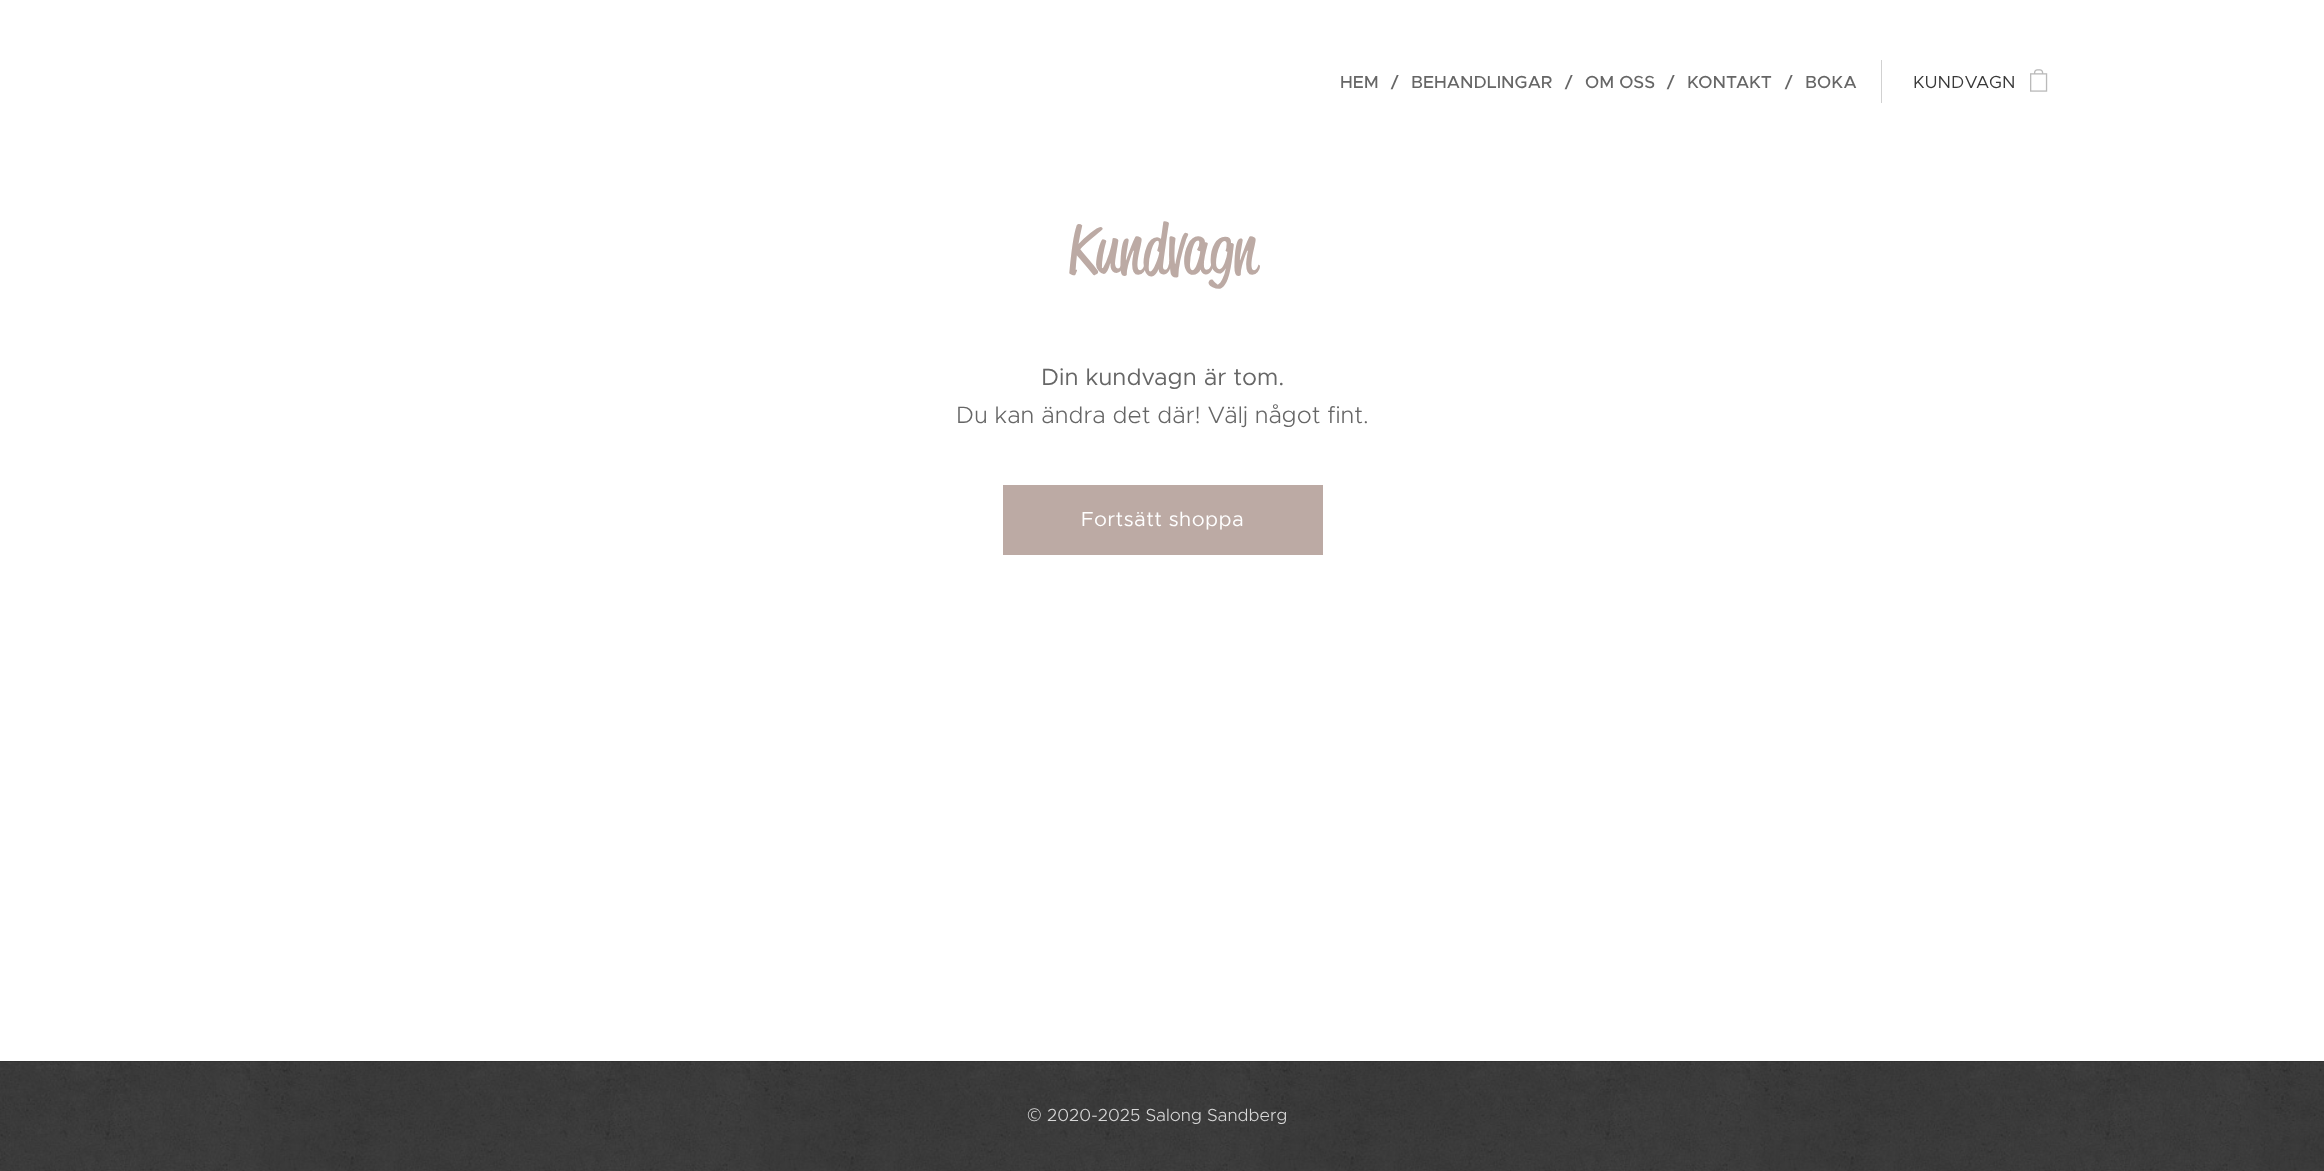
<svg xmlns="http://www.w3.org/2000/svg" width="2324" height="1171">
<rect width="100%" height="100%" fill="#fff"/>
<text x="1340" y="88" style="font-family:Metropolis;font-size:17.5px;font-weight:500;fill:#666">HEM</text>
<text x="1391" y="88" style="font-family:Metropolis;font-size:17.5px;font-weight:500;fill:#666">/</text>
<text x="1411" y="88" style="font-family:Metropolis;font-size:17.5px;font-weight:500;fill:#666">BEHANDLINGAR</text>
<text x="1565" y="88" style="font-family:Metropolis;font-size:17.5px;font-weight:500;fill:#666">/</text>
<text x="1585" y="88" style="font-family:Metropolis;font-size:17.5px;font-weight:500;fill:#666">OM OSS</text>
<text x="1667" y="88" style="font-family:Metropolis;font-size:17.5px;font-weight:500;fill:#666">/</text>
<text x="1687" y="88" style="font-family:Metropolis;font-size:17.5px;font-weight:500;fill:#666">KONTAKT</text>
<text x="1785" y="88" style="font-family:Metropolis;font-size:17.5px;font-weight:500;fill:#666">/</text>
<text x="1805" y="88" style="font-family:Metropolis;font-size:17.5px;font-weight:500;fill:#666">BOKA</text>
<rect x="1881" y="60" width="1" height="43" fill="#d1d1d1"/>
<text x="1913" y="88" style="font-family:Metropolis;font-size:17.5px;fill:#393939">KUNDVAGN</text>
<image x="2030" y="69" width="18" height="23" href="media/1.png"/>
<text x="1069" y="273" style="font-family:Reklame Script;font-size:69px;fill:#bcaaa4">Kundvagn</text>
<text x="1041" y="385" style="font-family:Metropolis;font-size:23.75px;fill:#666">Din kundvagn är tom.</text>
<text x="956" y="423" style="font-family:Metropolis;font-size:23.75px;font-weight:300;fill:#666">Du kan ändra det där! Välj något fint.</text>
<rect x="1003" y="485" width="320" height="70" fill="#bcaaa4"/>
<text x="1081" y="526" style="font-family:Metropolis;font-size:20.5px;letter-spacing:0.4px;fill:#fff">Fortsätt shoppa</text>
<rect y="1061" width="2324" height="1" fill="#272727"/>
<image x="0" y="1061" width="2324" height="110" href="media/2.png"/>
<text x="1027" y="1121" style="font-family:Noto Sans;font-size:17.5px;font-weight:300;fill:#d8d8d8">©</text>
<text x="1047" y="1121" style="font-family:Metropolis;font-size:17.5px;font-weight:300;fill:#d8d8d8">2020-2025 Salong Sandberg</text>
</svg>
